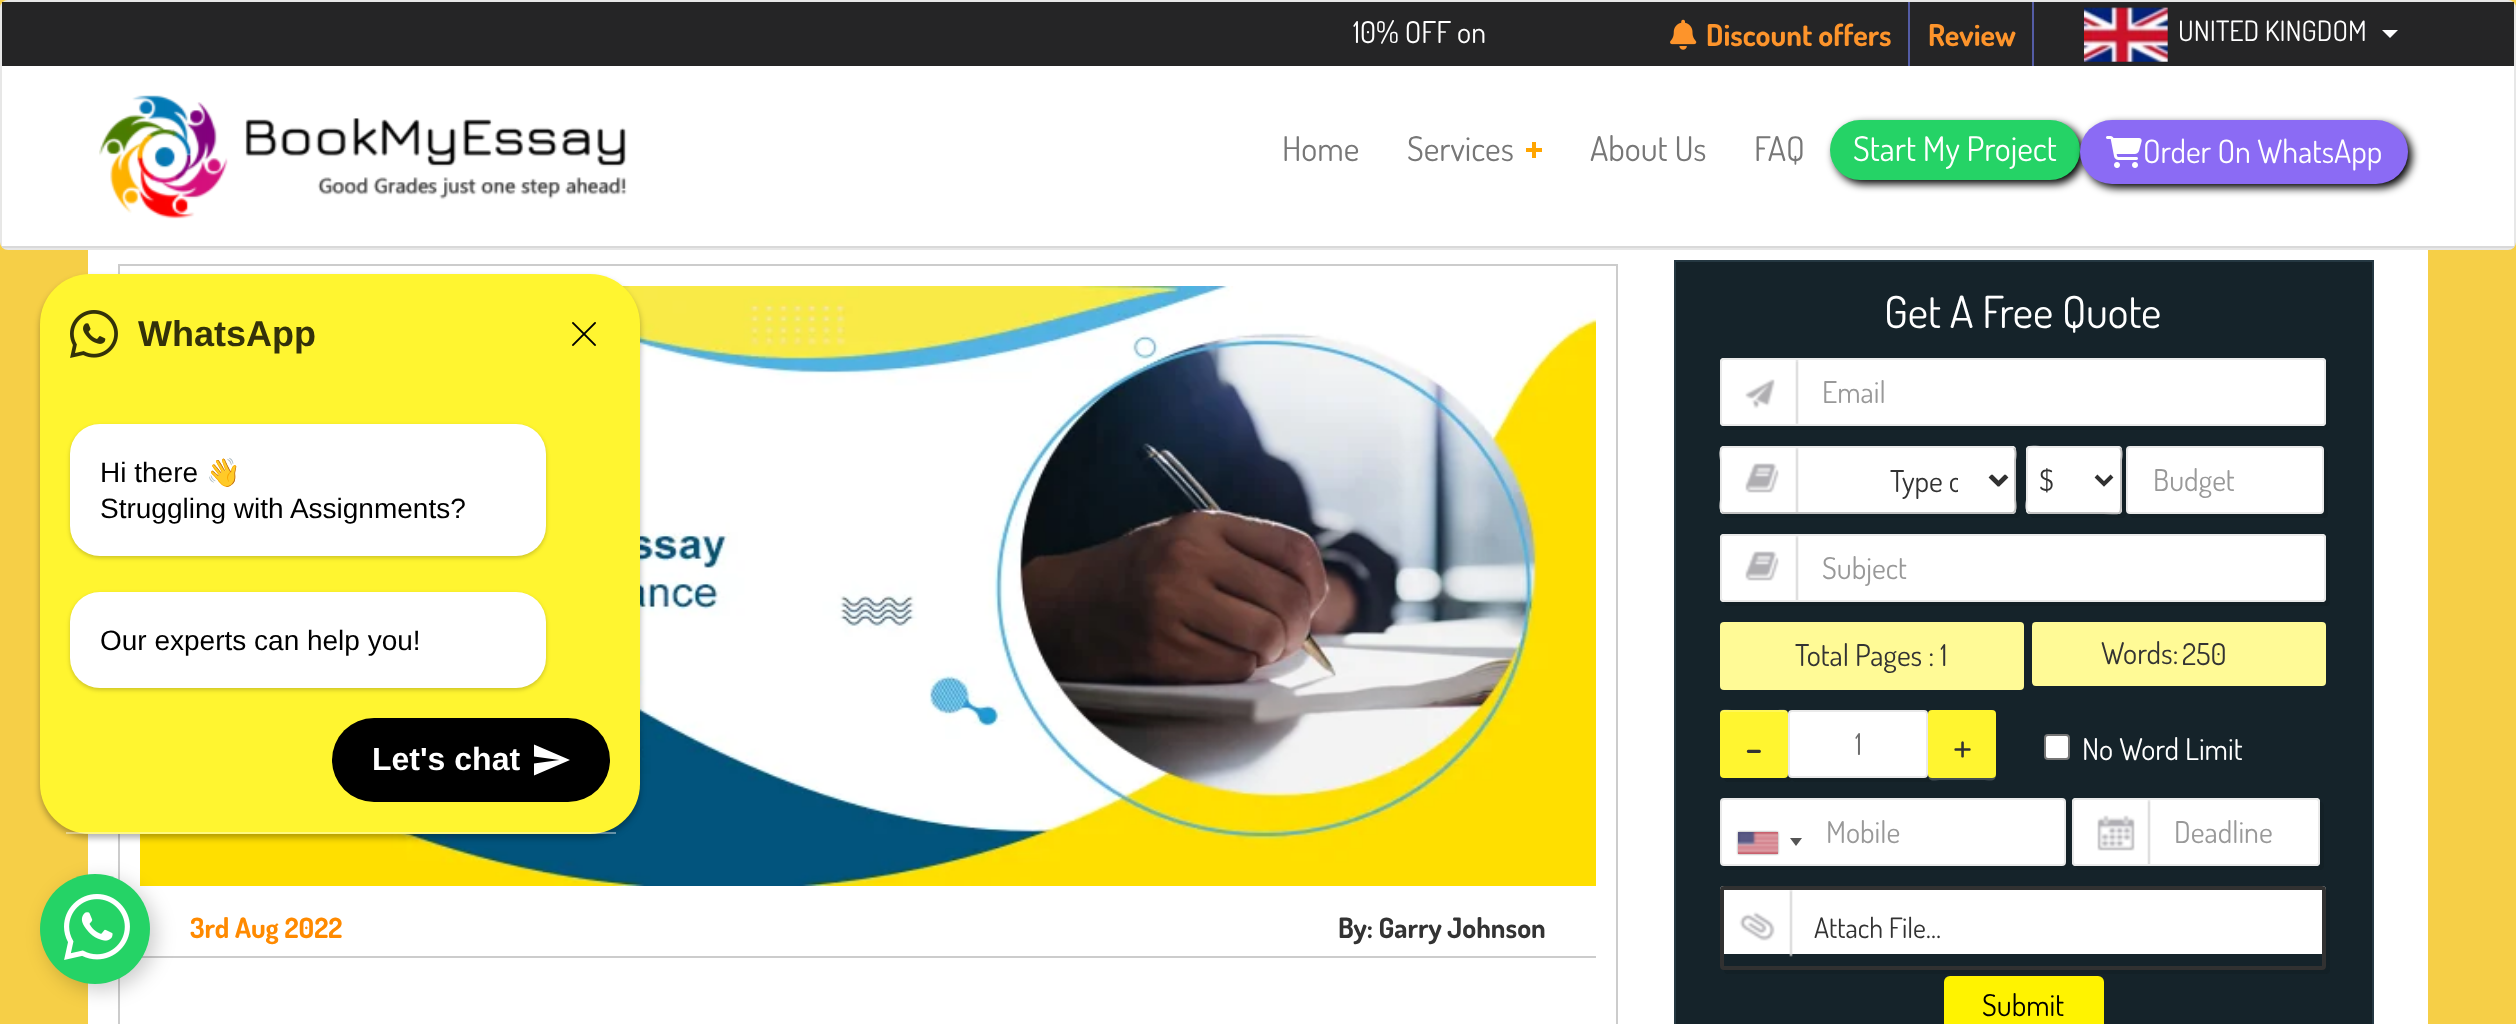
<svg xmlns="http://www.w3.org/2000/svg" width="2516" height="1024">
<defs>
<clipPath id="clip1"><rect x="1820" y="460" width="138" height="42"/></clipPath>
</defs>
<rect width="100%" height="100%" fill="#f6cf47"/>
<rect x="1" y="1" width="2514" height="248" rx="7" fill="none" stroke="#e7e7e7" stroke-width="2"/>
<rect x="2" y="2" width="2512" height="64" fill="#252526"/>
<text x="1353" y="43" style="font-family:Dosis;font-size:30px;fill:#fff">10% OFF on</text>
<image x="1670" y="19" width="27" height="31" href="media/1.png"/>
<text x="1706" y="46" style="font-family:Dosis;font-size:30px;font-weight:bold;fill:#fd942b">Discount offers</text>
<rect x="1908" y="2" width="2" height="64" fill="#545ca5"/>
<text x="1928" y="46" style="font-family:Dosis;font-size:30px;font-weight:bold;fill:#fd942b">Review</text>
<rect x="2032" y="2" width="2" height="64" fill="#545ca5"/>
<image x="2084" y="7" width="84" height="55" href="media/2.png"/>
<text x="2178" y="41" style="font-family:Dosis;font-size:28px;fill:#fff">UNITED KINGDOM</text>
<path d="M2382 30h16l-8 8z" fill="#fff"/>
<rect x="2" y="66" width="2512" height="180" fill="#fff"/>
<rect x="2" y="246" width="2512" height="2" fill="#d9d9d9"/>
<image x="99" y="95" width="528" height="124" href="media/3.png"/>
<text x="1282" y="161" style="font-family:Dosis;font-size:34px;fill:#777">Home</text>
<text x="1407" y="161" style="font-family:Dosis;font-size:34px;fill:#777">Services</text>
<rect x="1526" y="148" width="16" height="4" fill="#ffa500"/>
<rect x="1532" y="142" width="4" height="16" fill="#ffa500"/>
<text x="1590" y="161" style="font-family:Dosis;font-size:34px;fill:#777">About Us</text>
<text x="1754" y="161" style="font-family:Dosis;font-size:34px;fill:#777">FAQ</text>
<rect x="1834" y="124" width="250" height="60" rx="30" fill="#000" filter="blur(4px)"/>
<rect x="1830" y="120" width="250" height="60" rx="30" fill="#25d366"/>
<text x="1853" y="161" style="font-family:Dosis;font-size:34px;fill:#fff">Start My Project</text>
<rect x="2084" y="124" width="328" height="64" rx="32" fill="#000" filter="blur(4px)"/>
<rect x="2080" y="120" width="328" height="64" rx="32" fill="#8b6bf4"/>
<image x="2106" y="136" width="36" height="32" href="media/4.png"/>
<text x="2143" y="163" style="font-family:Dosis;font-size:32px;fill:#fff">Order On WhatsApp</text>
<rect x="88" y="250" width="2340" height="774" fill="#fff"/>
<rect x="119" y="265" width="1498" height="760" fill="none" stroke="#ccc" stroke-width="2"/>
<image x="140" y="286" width="1456" height="600" href="media/5.png"/>
<rect x="140" y="956" width="1456" height="2" fill="#ccc"/>
<text x="190" y="938" style="font-family:Dosis;font-size:28px;font-weight:bold;fill:#ff8a00">3rd Aug 2022</text>
<text x="1338" y="938" style="font-family:Dosis;font-size:28px;font-weight:bold;fill:#333">By: Garry Johnson</text>
<rect x="1675" y="261" width="698" height="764" fill="#15232a" stroke="#253842" stroke-width="2"/>
<text x="1884" y="328" style="font-family:Dosis;font-size:44px;fill:#fff">Get A Free Quote</text>
<path d="M1724 426c0 2 2 4 4 4h598c2 0 4-2 4-4v-60c0-2-2-4-4-4v60c0 2-2 4-4 4z" fill="#132026"/>
<rect x="1720" y="358" width="606" height="68" rx="4" fill="#fff"/>
<image x="1745" y="360" width="54" height="64" href="media/6.png"/>
<path d="M1724 362h598c1 0 2 1 2 2v-2c0-1-1-2-2-2h-598c-1 0-2 1-2 2v2c0-1 1-2 2-2z" fill="#ffffff30"/>
<rect x="1721" y="359" width="604" height="66" rx="3" fill="none" stroke="#eaeaea" stroke-width="2"/>
<text x="1822" y="403" style="font-family:Dosis;font-size:30px;fill:#999">Email</text>
<path d="M1724 514c0 2 2 4 4 4h288c2 0 4-2 4-4v-60c0-2-2-4-4-4v60c0 2-2 4-4 4z" fill="#132026"/>
<rect x="1720" y="446" width="296" height="68" rx="4" fill="#fff"/>
<image x="1745" y="448" width="263" height="64" href="media/7.png"/>
<path d="M1724 450h288c1 0 2 1 2 2c0-2 0-4-2-4h-289c-1 1-1 3-1 4c0-1 1-2 2-2z" fill="#ffffff30"/>
<path d="M2014 448c2.5 2.5 1 12 1 12v40c0 .5 2.5 13-3 13h-289l-1-1" fill="none" stroke="#c2c2c2" stroke-width="2"/>
<path d="M1722 512c-2.5-2.5-1-12-1-12v-40c0-.5-2.5-13 3-13h289l1 1" fill="none" stroke="#eaeaea" stroke-width="2"/>
<path d="M1991 476l8 8l8-8" fill="none" stroke="#313131" stroke-width="4"/>
<g clip-path="url(#clip1)">
<text x="1890" y="492" style="font-family:Dosis;font-size:30px;fill:#333">Type o</text>
</g>
<path d="M2030 514c0 2 2 4 4 4h88c2 0 4-2 4-4v-60c0-2-2-4-4-4v60c0 2-2 4-4 4z" fill="#132026"/>
<rect x="2026" y="446" width="96" height="68" rx="4" fill="#fff"/>
<path d="M2120 448c2.5 2.5 1 12 1 12v40c0 17 1.5 13-17.5 13h-73.5l-2-1" fill="none" stroke="#c2c2c2" stroke-width="2"/>
<path d="M2028 512c-2.5-2.5-1-12-1-12v-40c0-17-1.5-13 17.5-13h73.5l2 1" fill="none" stroke="#eaeaea" stroke-width="2"/>
<path d="M2096 476l8 8l8-8" fill="none" stroke="#313131" stroke-width="4"/>
<text x="2039" y="491" style="font-family:Dosis;font-size:30px;fill:#333">$</text>
<path d="M2130 514c0 2 2 4 4 4h190c2 0 4-2 4-4v-60c0-2-2-4-4-4v60c0 2-2 4-4 4z" fill="#132026"/>
<rect x="2127" y="447" width="196" height="66" rx="3" fill="#fff" stroke="#eaeaea" stroke-width="2"/>
<text x="2153" y="491" style="font-family:Dosis;font-size:30px;fill:#999">Budget</text>
<path d="M1724 602c0 2 2 4 4 4h598c2 0 4-2 4-4v-60c0-2-2-4-4-4v60c0 2-2 4-4 4z" fill="#132026"/>
<rect x="1720" y="534" width="606" height="68" rx="4" fill="#fff"/>
<image x="1745" y="536" width="54" height="64" href="media/8.png"/>
<path d="M1724 538h598c1 0 2 1 2 2v-2c0-1-1-2-2-2h-598c-1 0-2 1-2 2v2c0-1 1-2 2-2z" fill="#ffffff30"/>
<rect x="1721" y="535" width="604" height="66" rx="3" fill="none" stroke="#eaeaea" stroke-width="2"/>
<text x="1822" y="579" style="font-family:Dosis;font-size:30px;fill:#999">Subject</text>
<rect x="1720" y="622" width="304" height="68" rx="4" fill="#fffa96"/>
<text x="1795" y="666" style="font-family:Dosis;font-size:30px;fill:#333">Total Pages : 1</text>
<rect x="2032" y="622" width="294" height="64" rx="4" fill="#fffa96"/>
<text x="2101" y="664" style="font-family:Dosis;font-size:30px;fill:#333">Words:</text>
<text x="2182" y="665" style="font-family:Dosis;font-size:30px;fill:#333">250</text>
<path d="M1724 778c0 2 2 4 4 4h60c2 0 4-2 4-4v-60c0-2-2-4-4-4v60c0 2-2 4-4 4z" fill="#132026"/>
<rect x="1720" y="710" width="68" height="68" rx="4" fill="#fff530"/>
<path d="M1724 712h60c2 0 4 2 4 4c0-9-6-6-14-6h-40c-8 0-14-3-14 6c0-2 2-4 4-4z" fill="#ffffff30"/>
<text x="1745" y="762" style="font-family:Dosis;font-size:44px;font-weight:500;fill:#333">-</text>
<path d="M1792 778c0 2 2 4 4 4h132c2 0 4-2 4-4v-60c0-2-2-4-4-4v60c0 2-2 4-4 4z" fill="#132026"/>
<rect x="1789" y="711" width="138" height="66" rx="3" fill="#fff" stroke="#eaeaea" stroke-width="2"/>
<text x="1855" y="755" style="font-family:Dosis;font-size:30px;fill:#6d6d6d">1</text>
<path d="M1928 774c0 9 6 6 14 6h40c8 0 14 3 14-6c0 2-2 4-4 4h-60c-2 0-4-2-4-4z" fill="#ffffff30"/>
<rect x="1928" y="710" width="68" height="68" rx="4" fill="#fff530"/>
<text x="1953" y="762" style="font-family:Dosis;font-size:44px;fill:#333">+</text>
<rect x="2045" y="735" width="24" height="24" rx="3" fill="#fff" stroke="#767676" stroke-width="2"/>
<text x="2082" y="760" style="font-family:Dosis;font-size:30px;fill:#fff">No Word Limit</text>
<path d="M1724 866c0 2 2 4 4 4h338c2 0 4-2 4-4v-60c0-2-2-4-4-4v60c0 2-2 4-4 4z" fill="#132026"/>
<rect x="1721" y="799" width="344" height="66" rx="3" fill="#fff" stroke="#eaeaea" stroke-width="2"/>
<rect x="1738" y="832" width="40" height="22" fill="#888" filter="blur(1px)"/>
<image x="1738" y="832" width="40" height="22" href="media/9.png"/>
<path d="M1790 838h12l-6 8z" fill="#555"/>
<text x="1826" y="843" style="font-family:Dosis;font-size:30px;fill:#999">Mobile</text>
<path d="M2076 866c0 2 2 4 4 4h240c2 0 4-2 4-4v-60c0-2-2-4-4-4v60c0 2-2 4-4 4z" fill="#132026"/>
<rect x="2072" y="798" width="248" height="68" rx="4" fill="#fff"/>
<image x="2097" y="800" width="54" height="64" href="media/10.png"/>
<path d="M2076 802h240c1 0 2 1 2 2c0-2 0-4-2-4h-240c-2 0-2 3-2 4c0-1 1-2 2-2z" fill="#ffffff30"/>
<rect x="2073" y="799" width="246" height="66" rx="3" fill="none" stroke="#eaeaea" stroke-width="2"/>
<text x="2174" y="843" style="font-family:Dosis;font-size:30px;fill:#999">Deadline</text>
<rect x="1720" y="886" width="606" height="68" rx="4" fill="#fff"/>
<path d="M1724 970c0 2 2 4 4 4h598c2 0 4-2 4-4v-76c0-2-2-4-4-4v76c0 2-2 4-4 4z" fill="#132026"/>
<image x="1739" y="890" width="54" height="67" href="media/11.png"/>
<rect x="1790" y="890" width="2" height="2" fill="#ffffff30"/>
<rect x="1722" y="888" width="602" height="80" rx="2" fill="none" stroke="#313131" stroke-width="4"/>
<text x="1814" y="938" style="font-family:Dosis;font-size:28px;fill:#333">Attach File…</text>
<rect x="1944" y="976" width="160" height="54" rx="6" fill="#fff300"/>
<text x="1982" y="1016" style="font-family:Dosis;font-size:30px;fill:#000">Submit</text>
<rect x="40" y="278" width="600" height="560" rx="50" fill="#0000004d" filter="blur(3px)"/>
<path d="M90 274h500c27.5 0 50 22.5 50 50v70h-600v-70c0-27.5 22.5-50 50-50z" fill="#fff530"/>
<image x="70" y="310" width="48" height="48" href="media/12.png"/>
<text x="138" y="346" style="font-family:Liberation Sans;font-size:36px;font-weight:bold;fill:#33310a">WhatsApp</text>
<image x="572" y="322" width="24" height="24" href="media/13.png"/>
<path d="M40 394h600v390c0 27.5-22.5 50-50 50h-500c-27.5 0-50-22.5-50-50z" fill="#fff530"/>
<rect x="66" y="832" width="550" height="2" fill="#ffffff66"/>
<rect x="70" y="426" width="476" height="132" rx="30" fill="#00000033" filter="blur(2px)"/>
<rect x="70" y="424" width="476" height="132" rx="30" fill="#fff"/>
<text x="100" y="482" style="font-family:Liberation Sans;font-size:28px;fill:#000">Hi there</text>
<text x="206" y="482" style="font-family:Noto Color Emoji;font-size:28px;fill:#000">👋</text>
<text x="100" y="518" style="font-family:Liberation Sans;font-size:28px;fill:#000">Struggling with Assignments?</text>
<rect x="70" y="594" width="476" height="96" rx="30" fill="#00000033" filter="blur(2px)"/>
<rect x="70" y="592" width="476" height="96" rx="30" fill="#fff"/>
<text x="100" y="650" style="font-family:Liberation Sans;font-size:28px;fill:#000">Our experts can help you!</text>
<rect x="332" y="718" width="278" height="84" rx="42" fill="#000"/>
<text x="372" y="770" style="font-family:Liberation Sans;font-size:32px;font-weight:bold;fill:#fff">Let's chat</text>
<path d="M534 744.5v12l25.5 3.5l-25.5 3.5v12l36-15.5z" fill="#fff"/>
<rect x="46" y="880" width="110" height="110" rx="55" fill="#00000033" filter="blur(10px)"/>
<circle cx="95" cy="929" r="55" fill="#25d366"/>
<image x="64" y="894" width="66" height="66" href="media/14.png"/>
</svg>
